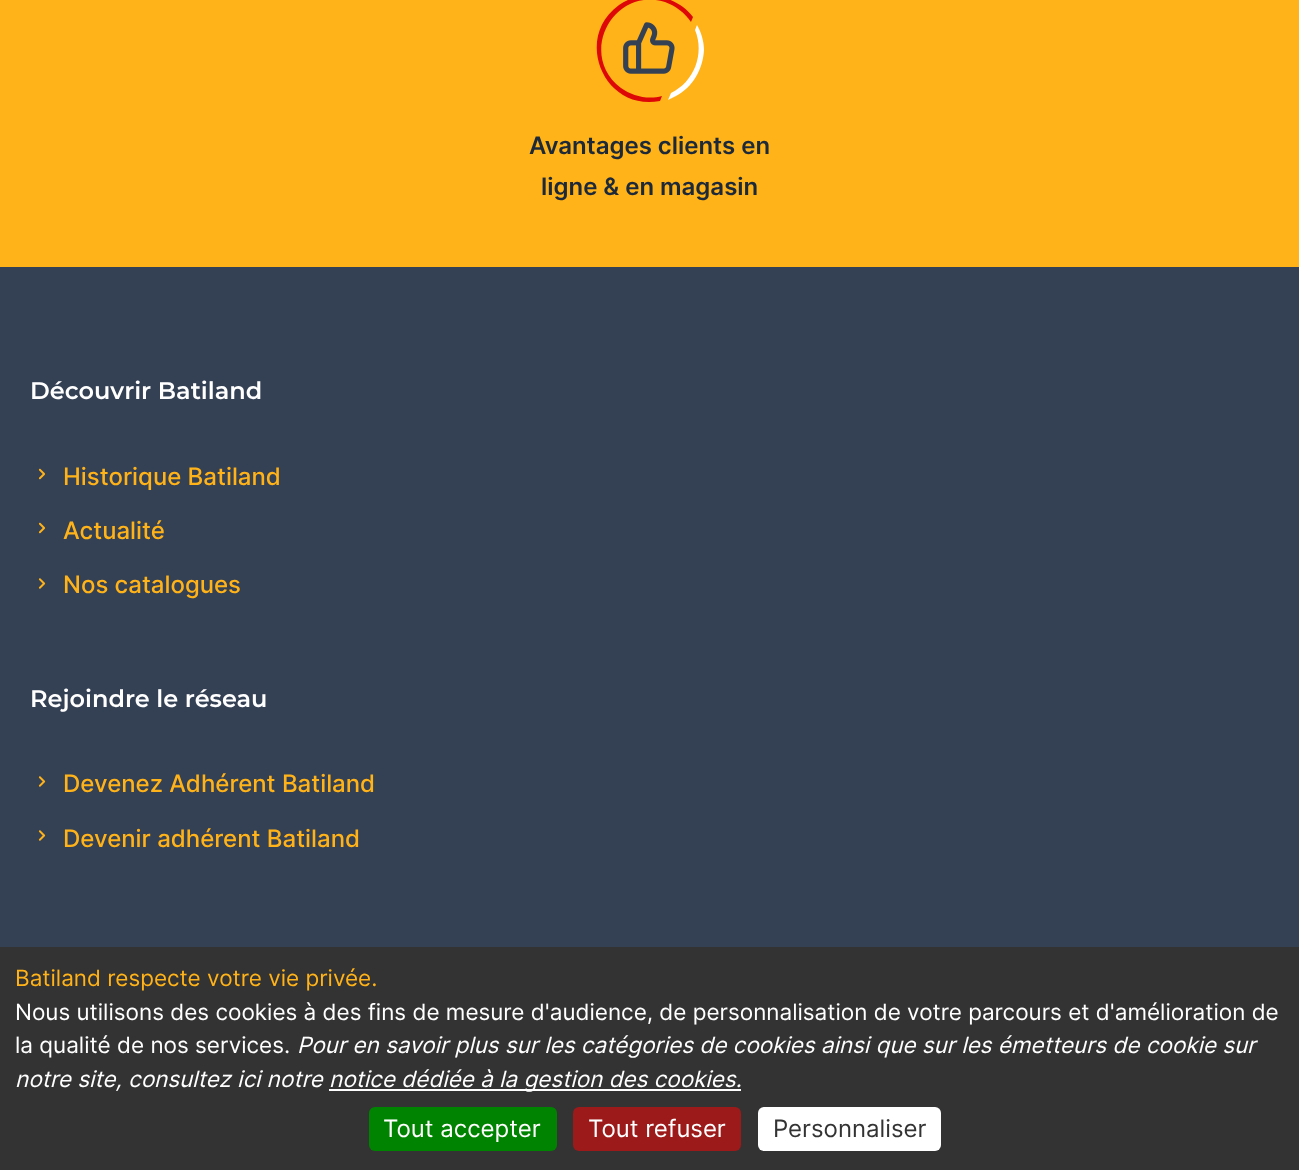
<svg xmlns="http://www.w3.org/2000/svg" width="1299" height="1170">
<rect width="100%" height="100%" fill="#344054"/>
<rect width="1299" height="267" fill="#ffb319"/>
<path d="M704 50c-1 19-11 37-28 46l-8 4l3-7c23-11 34-39 24-63l2-5c4 7 7 16 7 25z" fill="#fff"/>
<path d="M693 17l-2 5c-6-9-15-16-26-20c-52-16-88 53-44 86c11 8 27 12 41 8l-2 5c-56 11-87-63-41-96c10-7 22-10 34-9c16 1 31 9 40 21z" fill="#de0707"/>
<image x="623" y="22" width="52" height="52" href="media/1.png"/>
<text x="529" y="154" style="font-family:Inter;font-size:24px;font-weight:600;fill:#1d2939">Avantages clients en</text>
<text x="541" y="195" style="font-family:Inter;font-size:24px;font-weight:600;fill:#1d2939">ligne &amp; en magasin</text>
<text x="30" y="399" style="font-family:Montserrat;font-size:24px;font-weight:100;fill:#fff">Découvrir Batiland</text>
<image x="38" y="468" width="8" height="12" href="media/2.png"/>
<text x="63" y="485" style="font-family:Inter;font-size:24px;font-weight:500;fill:#ffb319">Historique Batiland</text>
<image x="38" y="522" width="8" height="12" href="media/2.png"/>
<text x="63" y="539" style="font-family:Inter;font-size:24px;font-weight:500;fill:#ffb319">Actualité</text>
<image x="38" y="578" width="8" height="11" href="media/3.png"/>
<text x="63" y="593" style="font-family:Inter;font-size:24px;font-weight:500;fill:#ffb319">Nos catalogues</text>
<text x="30" y="707" style="font-family:Montserrat;font-size:24px;font-weight:100;fill:#fff">Rejoindre le réseau</text>
<image x="38" y="776" width="8" height="11" href="media/3.png"/>
<text x="63" y="792" style="font-family:Inter;font-size:24px;font-weight:500;fill:#ffb319">Devenez Adhérent Batiland</text>
<image x="38" y="830" width="8" height="11" href="media/3.png"/>
<text x="63" y="847" style="font-family:Inter;font-size:24px;font-weight:500;fill:#ffb319">Devenir adhérent Batiland</text>
<rect y="947" width="1299" height="223" fill="#333"/>
<text x="15" y="986" style="font-family:Inter;font-size:22.5px;fill:#ffb319">Batiland respecte votre vie privée.</text>
<text x="15" y="1020" style="font-family:Inter;font-size:22.5px;fill:#fff">Nous utilisons des cookies à des fins de mesure d'audience, de personnalisation de votre parcours et d'amélioration de</text>
<text x="15" y="1053" style="font-family:Inter;font-size:22.5px;fill:#fff">la qualité de nos services.</text>
<text x="297" y="1053" style="font-family:Inter;font-size:22.5px;font-style:italic;fill:#fff">Pour en savoir plus sur les catégories de cookies ainsi que sur les émetteurs de cookie sur</text>
<text x="15" y="1087" style="font-family:Inter;font-size:22.5px;font-style:italic;fill:#fff">notre site, consultez ici notre</text>
<rect x="329" y="1089" width="412" height="2" fill="#fff"/>
<text x="329" y="1087" style="font-family:Inter;font-size:22.5px;font-style:italic;fill:#fff">notice dédiée à la gestion des cookies.</text>
<rect x="369" y="1107" width="188" height="44" rx="6" fill="#008300"/>
<text x="383" y="1137" style="font-family:Inter;font-size:24px;fill:#fff">Tout accepter</text>
<rect x="573" y="1107" width="168" height="44" rx="6" fill="#9c1a1a"/>
<text x="588" y="1137" style="font-family:Inter;font-size:24px;fill:#fff">Tout refuser</text>
<rect x="758" y="1107" width="183" height="44" rx="6" fill="#fff"/>
<text x="773" y="1137" style="font-family:Inter;font-size:24px;fill:#333">Personnaliser</text>
</svg>
